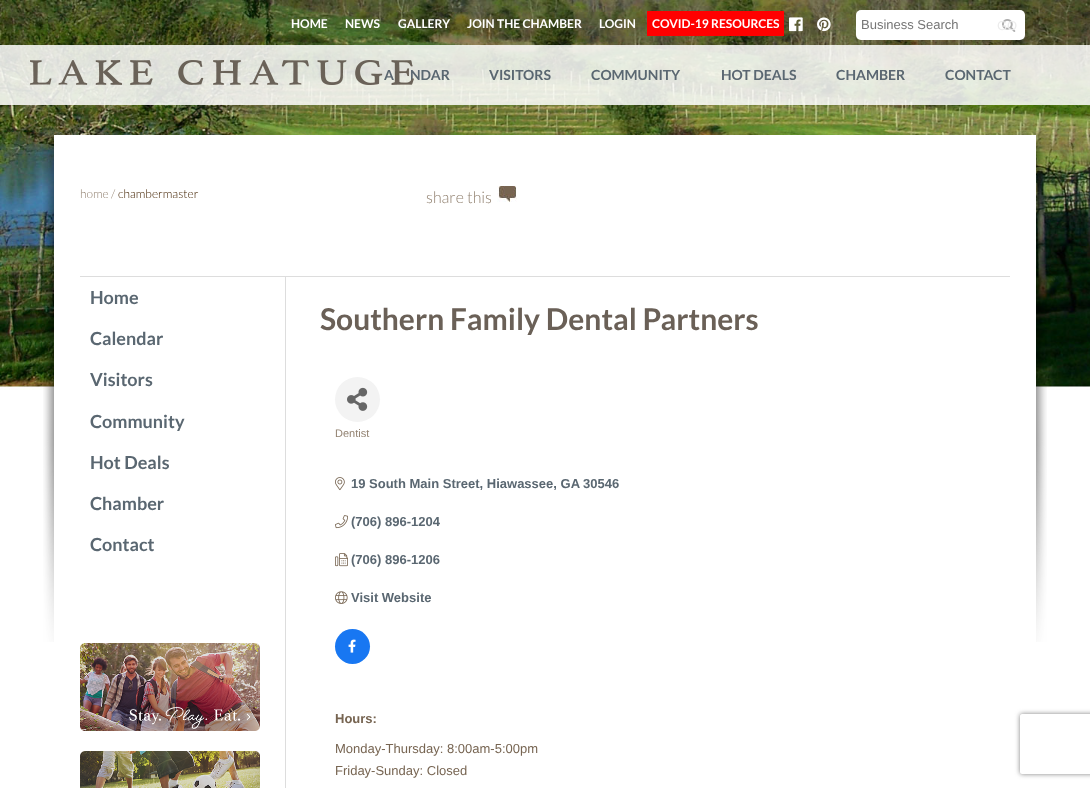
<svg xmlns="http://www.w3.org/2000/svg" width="1090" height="788">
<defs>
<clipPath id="clip1"><path d="M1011 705h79v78h-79zm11 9h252c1 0 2 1 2 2v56c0 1-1 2-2 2h-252c-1 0-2-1-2-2v-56c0-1 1-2 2-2z" clip-rule="evenodd"/></clipPath>
</defs>
<rect width="100%" height="100%" fill="#fff"/>
<image x="0" y="0" width="1090" height="390" href="media/1.png"/>
<image x="43" y="133" width="1004" height="509" href="media/2.png"/>
<text x="291" y="28" style="font-family:Lato;font-size:12px;font-weight:bold;fill:#fff">HOME</text>
<text x="345" y="28" style="font-family:Lato;font-size:12px;font-weight:bold;fill:#fff">NEWS</text>
<text x="398" y="28" style="font-family:Lato;font-size:12px;font-weight:bold;fill:#fff">GALLERY</text>
<text x="467" y="28" style="font-family:Lato;font-size:12px;font-weight:bold;fill:#fff">JOIN THE CHAMBER</text>
<text x="599" y="28" style="font-family:Lato;font-size:12px;font-weight:bold;fill:#fff">LOGIN</text>
<rect x="647" y="11" width="137" height="25" fill="#f00"/>
<text x="652" y="28" style="font-family:Lato;font-size:12px;font-weight:bold;fill:#fff">COVID-19 RESOURCES</text>
<image x="789" y="17" width="14" height="15" href="media/3.png"/>
<image x="817" y="17" width="14" height="15" href="media/4.png"/>
<rect x="856" y="10" width="169" height="30" rx="5" fill="#fff"/>
<text x="861" y="29" style="font-family:Liberation Sans;font-size:13px;fill:#757575">Business Search</text>
<image x="1002" y="19" width="14" height="13" href="media/5.png"/>
<text x="997" y="30" style="font-family:Liberation Sans;font-size:13px;fill:#ececec">GO</text>
<rect y="45" width="1090" height="60" fill="#ffffffd9"/>
<text x="384" y="80" style="font-family:Lato;font-size:14px;font-weight:bold;fill:#5a6771">A</text>
<text x="410" y="80" style="font-family:Lato;font-size:14px;font-weight:bold;fill:#5a6771">NDAR</text>
<text x="489" y="80" style="font-family:Lato;font-size:14px;font-weight:bold;fill:#5a6771">VISITORS</text>
<text x="591" y="80" style="font-family:Lato;font-size:14px;font-weight:bold;fill:#5a6771">COMMUNITY</text>
<text x="721" y="80" style="font-family:Lato;font-size:14px;font-weight:bold;fill:#5a6771">HOT DEALS</text>
<text x="836" y="80" style="font-family:Lato;font-size:14px;font-weight:bold;fill:#5a6771">CHAMBER</text>
<text x="945" y="80" style="font-family:Lato;font-size:14px;font-weight:bold;fill:#5a6771">CONTACT</text>
<image x="30" y="60" width="384" height="25" href="media/6.png"/>
<rect x="54" y="135" width="982" height="507" fill="#fff"/>
<rect x="80" y="276" width="930" height="1" fill="#ddd"/>
<text x="80" y="198" style="font-family:Lato;font-size:12px;font-weight:300;fill:#928271">home /</text>
<text x="118" y="198" style="font-family:Lato;font-size:12px;font-weight:300;fill:#422200">chambermaster</text>
<image x="497" y="186" width="20" height="16" href="media/7.png"/>
<text x="426" y="203" style="font-family:Lato;font-size:16px;font-weight:300;fill:#928271">share this</text>
<rect x="285" y="277" width="1" height="511" fill="#ddd"/>
<text x="90" y="304" style="font-family:Lato;font-size:18px;font-weight:bold;fill:#5a6771">Home</text>
<text x="90" y="345" style="font-family:Lato;font-size:18px;font-weight:bold;fill:#5a6771">Calendar</text>
<text x="90" y="386" style="font-family:Lato;font-size:18px;font-weight:bold;fill:#5a6771">Visitors</text>
<text x="90" y="428" style="font-family:Lato;font-size:18px;font-weight:bold;fill:#5a6771">Community</text>
<text x="90" y="469" style="font-family:Lato;font-size:18px;font-weight:bold;fill:#5a6771">Hot Deals</text>
<text x="90" y="510" style="font-family:Lato;font-size:18px;font-weight:bold;fill:#5a6771">Chamber</text>
<text x="90" y="551" style="font-family:Lato;font-size:18px;font-weight:bold;fill:#5a6771">Contact</text>
<image x="80" y="643" width="180" height="88" href="media/8.png"/>
<image x="80" y="751" width="180" height="37" href="media/9.png"/>
<text x="320" y="330" style="font-family:Lato;font-size:30px;font-weight:bold;fill:#6a6057">Southern Family Dental Partners</text>
<circle cx="357.5" cy="399.5" r="22.5" fill="#f3f3f3"/>
<image x="347" y="387" width="21" height="24" href="media/10.png"/>
<text x="335" y="437" style="font-family:Liberation Sans;font-size:11px;fill:#928271">Dentist</text>
<image x="335" y="477" width="10" height="14" href="media/11.png"/>
<text x="351" y="488" style="font-family:Liberation Sans;font-size:13px;font-weight:bold;fill:#5a6771">19 South Main Street, Hiawassee, GA</text>
<text x="583" y="488" style="font-family:Liberation Sans;font-size:13px;font-weight:bold;fill:#5a6771">30546</text>
<image x="335" y="515" width="13" height="14" href="media/12.png"/>
<text x="351" y="526" style="font-family:Liberation Sans;font-size:13px;font-weight:bold;fill:#5a6771">(706) 896-1204</text>
<image x="335" y="553" width="13" height="14" href="media/13.png"/>
<text x="351" y="564" style="font-family:Liberation Sans;font-size:13px;font-weight:bold;fill:#5a6771">(706) 896-1206</text>
<image x="335" y="591" width="13" height="13" href="media/14.png"/>
<text x="351" y="602" style="font-family:Liberation Sans;font-size:13px;font-weight:bold;fill:#5a6771">Visit Website</text>
<circle cx="352.5" cy="646.5" r="17.5" fill="#1877f2"/>
<image x="348" y="639" width="8" height="14" href="media/15.png"/>
<text x="335" y="723" style="font-family:Liberation Sans;font-size:13px;font-weight:bold;fill:#776552">Hours:</text>
<text x="335" y="753" style="font-family:Liberation Sans;font-size:13px;fill:#776552">Monday-Thursday: 8:00am-5:00pm</text>
<text x="335" y="775" style="font-family:Liberation Sans;font-size:13px;fill:#776552">Friday-Sunday: Closed</text>
<g clip-path="url(#clip1)">
<rect x="1020" y="714" width="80" height="60" rx="2" fill="#808080" filter="blur(2.5px)"/>
</g>
</svg>
